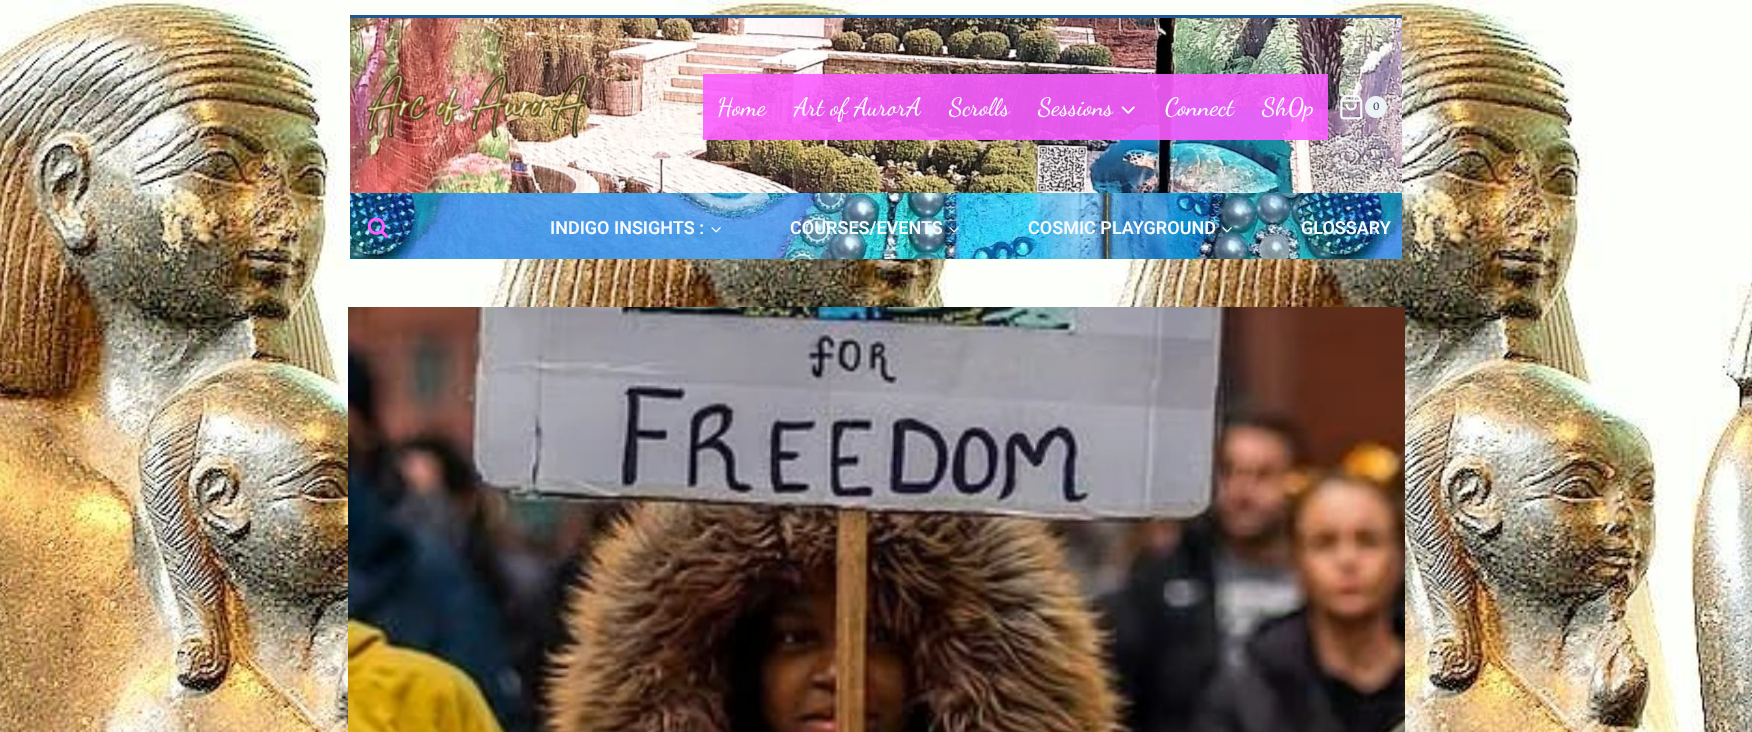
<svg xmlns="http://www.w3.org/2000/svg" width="1752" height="732">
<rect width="100%" height="100%" fill="#fff"/>
<image x="0" y="0" width="1752" height="732" href="media/1.png"/>
<image x="350" y="18" width="1052" height="175" href="media/2.png"/>
<rect x="350" y="15" width="1052" height="3" fill="#1d5796"/>
<image x="367" y="73" width="222" height="66" href="media/3.png"/>
<rect x="703" y="74" width="77" height="66" fill="#f95effe6"/>
<text x="717" y="115" style="font-family:Dancing Script;font-size:25px;font-weight:500;fill:#f7fafc">Home</text>
<rect x="780" y="74" width="156" height="66" fill="#f95effe6"/>
<text x="794" y="115" style="font-family:Dancing Script;font-size:25px;font-weight:500;fill:#f7fafc">Art of AurorA</text>
<rect x="936" y="74" width="88" height="66" fill="#f95effe6"/>
<text x="949" y="115" style="font-family:Dancing Script;font-size:25px;font-weight:500;fill:#f7fafc">Scrolls</text>
<rect x="1024" y="74" width="128" height="66" fill="#f95effe6"/>
<text x="1038" y="115" style="font-family:Dancing Script;font-size:25px;font-weight:500;fill:#f7fafc">Sessions</text>
<image x="1121" y="106" width="14" height="8" href="media/4.png"/>
<rect x="1152" y="74" width="96" height="66" fill="#f95effe6"/>
<text x="1165" y="115" style="font-family:Dancing Script;font-size:25px;font-weight:500;fill:#f7fafc">Connect</text>
<rect x="1248" y="74" width="80" height="66" fill="#f95effe6"/>
<text x="1262" y="115" style="font-family:Dancing Script;font-size:25px;font-weight:500;fill:#f7fafc">Sh0p</text>
<image x="1340" y="95" width="23" height="25" href="media/5.png"/>
<circle cx="1376" cy="107" r="11" fill="#edf2f7"/>
<text x="1373" y="110" style="font-family:Merriweather;font-size:10px;fill:#34445f">0</text>
<image x="350" y="193" width="1052" height="66" href="media/6.png"/>
<rect x="350" y="193" width="1052" height="3" fill="#1bbea817"/>
<rect x="350" y="256" width="1052" height="3" fill="#1bbea814"/>
<image x="367" y="217" width="22" height="21" href="media/7.png"/>
<text x="550" y="234" style="font-family:Roboto;font-size:18px;font-weight:600;fill:#f7fafc">INDIGO INSIGHTS :</text>
<image x="711" y="227" width="10" height="6" href="media/8.png"/>
<text x="790" y="234" style="font-family:Roboto;font-size:18px;font-weight:600;fill:#f7fafc">COURSES/EVENTS</text>
<image x="949" y="227" width="10" height="6" href="media/9.png"/>
<text x="1028" y="234" style="font-family:Roboto;font-size:18px;font-weight:600;fill:#f7fafc">COSMIC PLAYGROUND</text>
<image x="1222" y="227" width="10" height="6" href="media/10.png"/>
<text x="1301" y="234" style="font-family:Roboto;font-size:18px;font-weight:600;fill:#f7fafc">GLOSSARY</text>
<image x="348" y="307" width="1057" height="425" href="media/11.png"/>
</svg>
